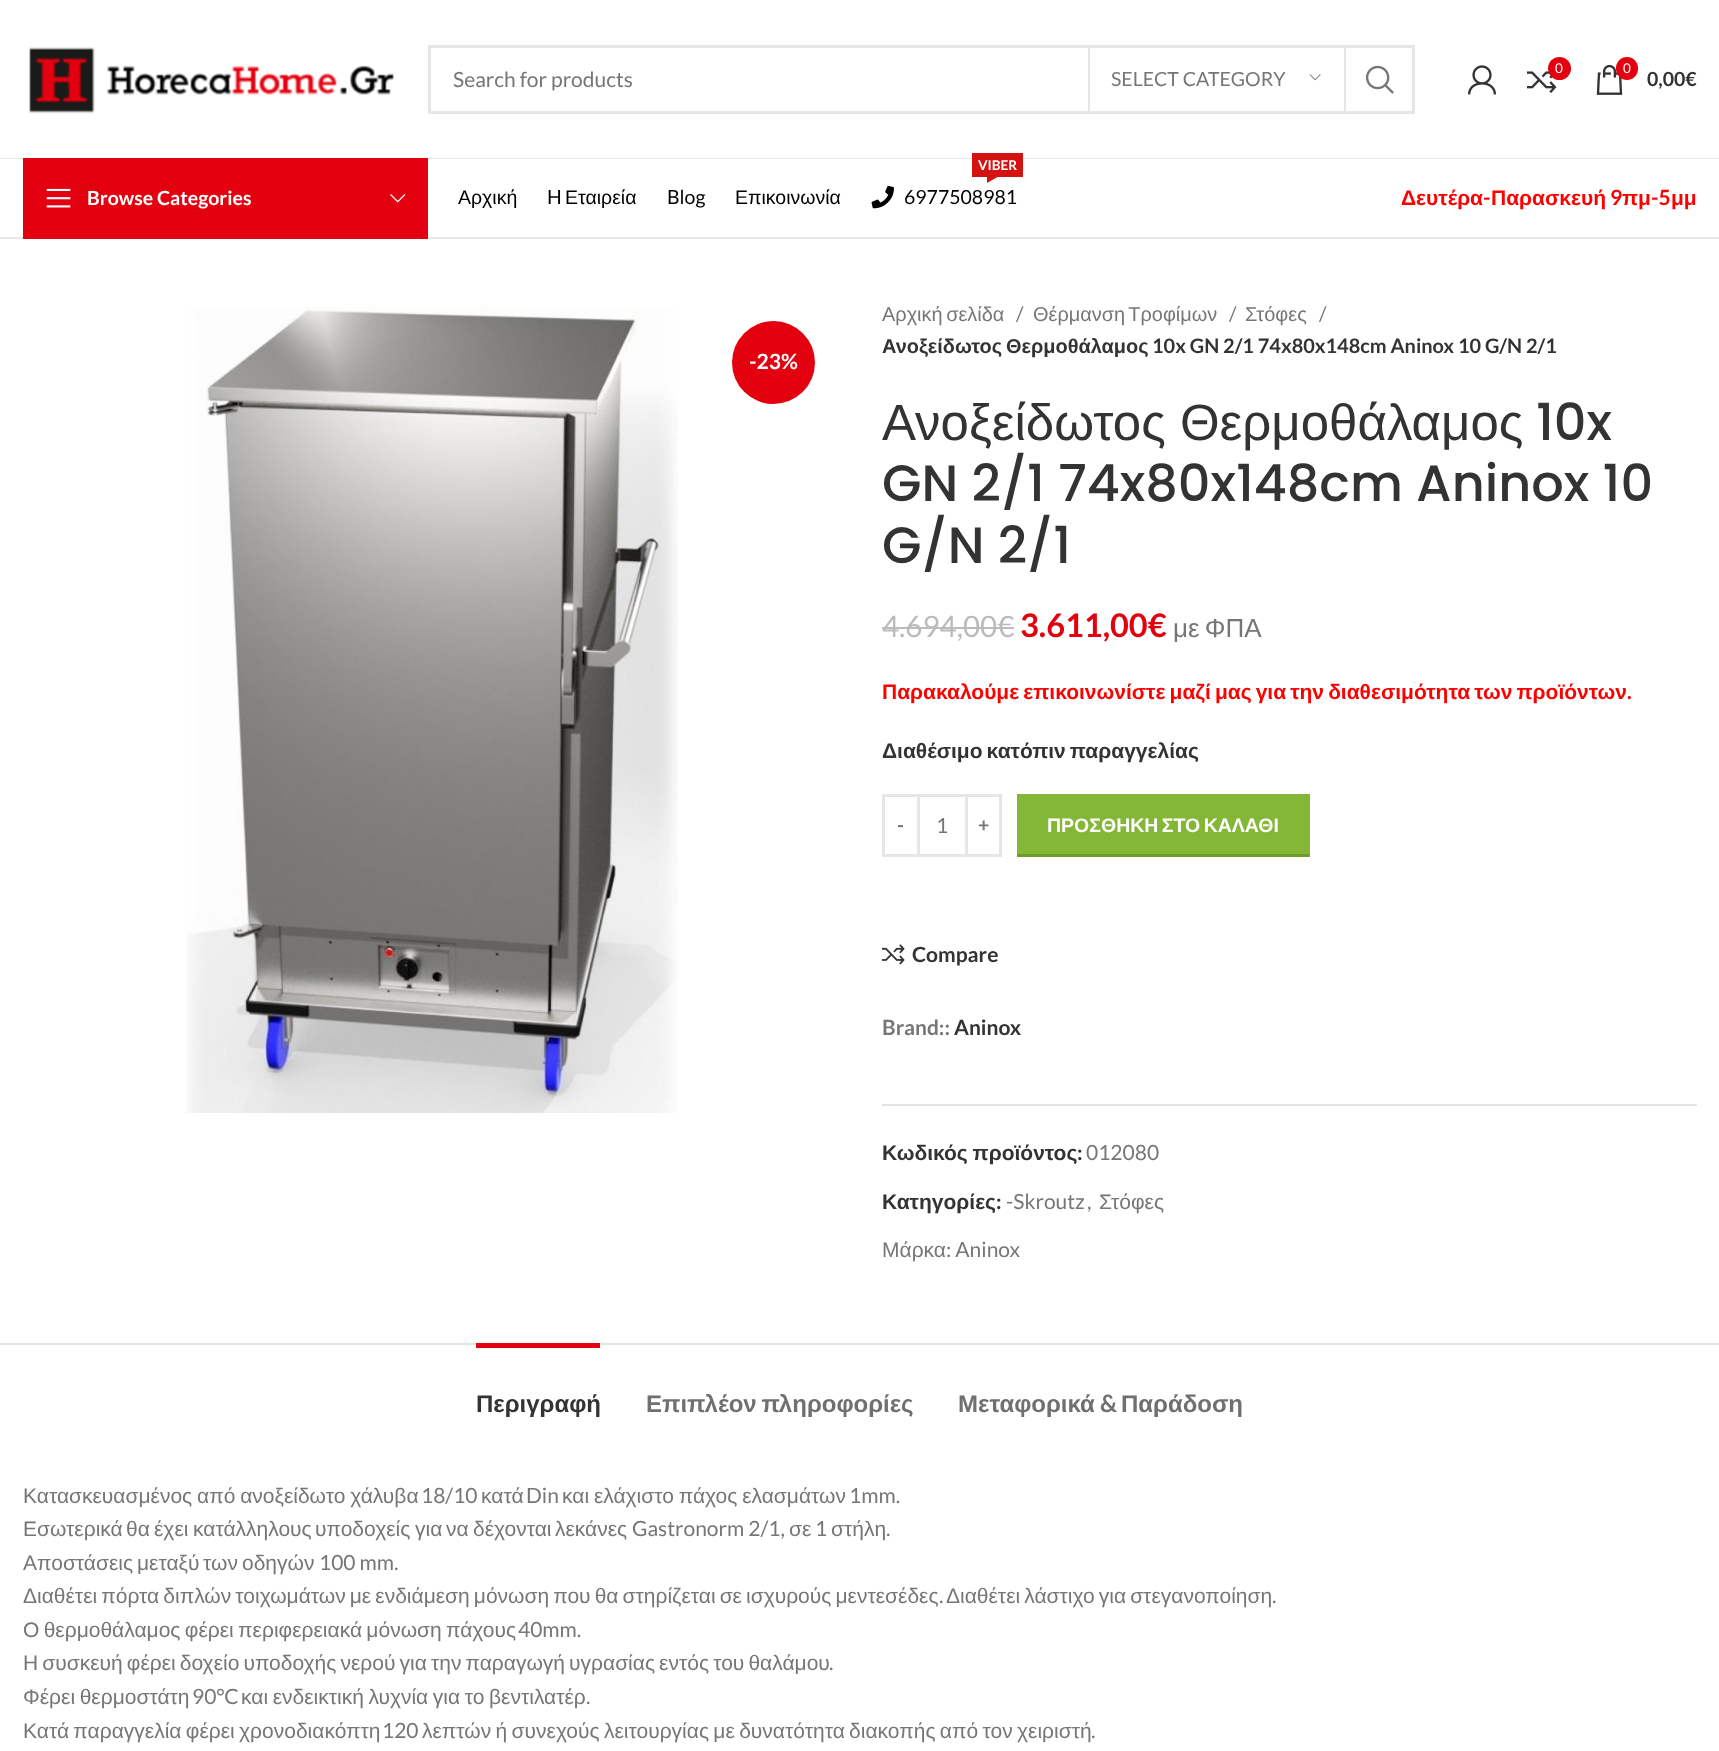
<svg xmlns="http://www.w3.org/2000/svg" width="1719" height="1751">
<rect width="100%" height="100%" fill="#fff"/>
<rect y="158" width="1719" height="1" fill="#e8e8e8"/>
<image x="29" y="47" width="365" height="67" href="media/1.png"/>
<rect x="429.5" y="46.5" width="984" height="66" fill="none" stroke="#e6e6e6" stroke-width="3"/>
<text x="453" y="87" style="font-family:Lato;font-size:21px;fill:#767676">Search for products</text>
<rect x="1344" y="48" width="2" height="63" fill="#e6e6e6"/>
<rect x="1088" y="48" width="2" height="63" fill="#e6e6e6"/>
<text x="1111" y="86" style="font-family:Lato;font-size:19.5px;fill:#767676">SELECT CATEGORY</text>
<image x="1309" y="74" width="12" height="7" href="media/2.png"/>
<image x="1365" y="65" width="29" height="29" href="media/3.png"/>
<image x="1468" y="65" width="28" height="30" href="media/4.png"/>
<image x="1527" y="71" width="30" height="22" href="media/5.png"/>
<circle cx="1559.5" cy="68.5" r="11.5" fill="#e3000f"/>
<text x="1555" y="73" style="font-family:Lato;font-size:13.5px;fill:#fff">0</text>
<image x="1596" y="64" width="27" height="31" href="media/6.png"/>
<rect x="1616" y="57" width="22" height="23" rx="11" fill="#e3000f"/>
<text x="1623" y="73" style="font-family:Lato;font-size:13.5px;fill:#fff">0</text>
<text x="1647" y="86" style="font-family:Lato;font-size:19.5px;font-weight:bold;fill:#333">0,00€</text>
<rect y="237" width="1719" height="2" fill="#e8e8e8"/>
<rect x="23" y="158" width="405" height="81" fill="#e3000f"/>
<image x="46" y="188" width="25" height="20" href="media/7.png"/>
<text x="87" y="205" style="font-family:Lato;font-size:19.5px;font-weight:bold;fill:#fff">Browse Categories</text>
<image x="390" y="194" width="16" height="9" href="media/8.png"/>
<text x="458" y="204" style="font-family:Liberation Sans;font-size:19.5px;fill:#000">Αρχική</text>
<text x="547" y="204" style="font-family:Lato;font-size:19.5px;fill:#000">H</text>
<text x="565" y="204" style="font-family:Liberation Sans;font-size:19.5px;fill:#000">Εταιρεία</text>
<text x="667" y="204" style="font-family:Lato;font-size:19.5px;fill:#000">Blog</text>
<text x="735" y="204" style="font-family:Liberation Sans;font-size:19.5px;fill:#000">Επικοινωνία</text>
<rect x="972" y="153" width="51" height="24" fill="#d41212"/>
<text x="978" y="170" style="font-family:Lato;font-size:13.5px;font-weight:bold;fill:#fff">VIBER</text>
<path d="M987 177h10.5l-10.5 6z" fill="#d41212"/>
<image x="871" y="185" width="23" height="24" href="media/9.png"/>
<text x="904" y="204" style="font-family:Lato;font-size:19.5px;fill:#000">6977508981</text>
<text x="1401" y="205" style="font-family:Liberation Sans;font-size:21px;font-weight:bold;fill:#f00">Δευτέρα</text>
<text x="1483" y="205" style="font-family:Lato;font-size:21px;font-weight:bold;fill:#f00">-</text>
<text x="1491" y="205" style="font-family:Liberation Sans;font-size:21px;font-weight:bold;fill:#f00">Παρασκευή</text>
<text x="1610" y="205" style="font-family:Lato;font-size:21px;font-weight:bold;fill:#f00">9</text>
<text x="1622" y="205" style="font-family:Liberation Sans;font-size:21px;font-weight:bold;fill:#f00">πμ</text>
<text x="1651" y="205" style="font-family:Lato;font-size:21px;font-weight:bold;fill:#f00">-5</text>
<text x="1671" y="205" style="font-family:Liberation Sans;font-size:21px;font-weight:bold;fill:#f00">μμ</text>
<image x="186" y="307" width="492" height="806" href="media/10.png"/>
<circle cx="773.5" cy="362.5" r="41.5" fill="#e3000f"/>
<text x="749" y="369" style="font-family:Lato;font-size:21px;font-weight:bold;fill:#fff">-23%</text>
<text x="882" y="321" word-spacing="-2" style="font-family:Liberation Sans;font-size:19.95px;fill:#767676">Αρχική σελίδα</text>
<text x="1016" y="321" style="font-family:Lato;font-size:19.95px;fill:#767676">/</text>
<text x="1033" y="321" word-spacing="-2" style="font-family:Liberation Sans;font-size:19.95px;fill:#767676">Θέρμανση Τροφίμων</text>
<text x="1229" y="321" style="font-family:Lato;font-size:19.95px;fill:#767676">/</text>
<text x="1245" y="321" style="font-family:Liberation Sans;font-size:19.95px;fill:#767676">Στόφες</text>
<text x="1319" y="321" style="font-family:Lato;font-size:19.95px;fill:#767676">/</text>
<text x="882" y="353" style="font-family:Liberation Sans;font-size:19.95px;font-weight:bold;fill:#333">Ανοξείδωτος</text>
<text x="1006" y="353" style="font-family:Liberation Sans;font-size:19.95px;font-weight:bold;fill:#333">Θερμοθάλαμος</text>
<text x="1152" y="353" style="font-family:Lato;font-size:19.95px;font-weight:bold;fill:#333">10x GN 2/1 74x80x148cm Aninox 10 G/N 2/1</text>
<text x="882" y="440" style="font-family:Liberation Sans;font-size:51px;fill:#333">Ανοξείδωτος Θερμοθάλαμος</text>
<text x="1536" y="440" style="font-family:Poppins;font-size:51px;font-weight:500;fill:#333">10x</text>
<text x="882" y="501" style="font-family:Poppins;font-size:51px;font-weight:500;fill:#333">GN 2/1 74x80x148cm Aninox 10</text>
<text x="882" y="563" style="font-family:Poppins;font-size:51px;font-weight:500;fill:#333">G/N 2/1</text>
<text x="882" y="637" style="font-family:Lato;font-size:29.5px;fill:#bbb">4.694,00€</text>
<rect x="882" y="627" width="132" height="2" fill="#bbb"/>
<text x="1020" y="637" style="font-family:Lato;font-size:32.5px;font-weight:bold;fill:#e3000f">3.611,00€</text>
<text x="1173" y="637" word-spacing="-2" style="font-family:Liberation Sans;font-size:26px;fill:#767676">με ΦΠΑ</text>
<text x="882" y="699" word-spacing="-1.75" style="font-family:Liberation Sans;font-size:21px;font-weight:bold;fill:#f00">Παρακαλούμε επικοινωνίστε μαζί μας για την διαθεσιμότητα των προϊόντων</text>
<text x="1627" y="699" style="font-family:Lato;font-size:21px;font-weight:bold;fill:#f00">.</text>
<text x="882" y="758" word-spacing="-1.75" style="font-family:Liberation Sans;font-size:21px;font-weight:bold;fill:#333">Διαθέσιμο κατόπιν παραγγελίας</text>
<rect x="883.5" y="795.5" width="35" height="60" fill="none" stroke="#e6e6e6" stroke-width="3"/>
<text x="897" y="832" style="font-family:Lato;font-size:19.5px;font-weight:bold;fill:#767676">-</text>
<rect x="920" y="794" width="45" height="3" fill="#e6e6e6"/>
<rect x="920" y="854" width="45" height="3" fill="#e6e6e6"/>
<text x="936" y="833" style="font-family:Lato;font-size:21px;fill:#767676">1</text>
<rect x="966.5" y="795.5" width="34" height="60" fill="none" stroke="#e6e6e6" stroke-width="3"/>
<text x="978" y="832" style="font-family:Lato;font-size:19.5px;font-weight:bold;fill:#767676">+</text>
<rect x="1017" y="794" width="293" height="60" fill="#83b735"/>
<rect x="1017" y="854" width="293" height="3" fill="#6f9c2d"/>
<text x="1047" y="832" word-spacing="-2" style="font-family:Liberation Sans;font-size:19.5px;font-weight:bold;fill:#fff">ΠΡΟΣΘΗΚΗ ΣΤΟ ΚΑΛΑΘΙ</text>
<image x="882" y="944" width="23" height="21" href="media/11.png"/>
<text x="912" y="962" style="font-family:Lato;font-size:21px;font-weight:bold;fill:#333">Compare</text>
<text x="882" y="1035" style="font-family:Lato;font-size:21px;font-weight:bold;fill:#767676">Brand::</text>
<text x="954" y="1035" style="font-family:Lato;font-size:21px;font-weight:bold;fill:#333">Aninox</text>
<rect x="882" y="1104" width="815" height="2" fill="#e4e4e4"/>
<text x="882" y="1160" word-spacing="-1" style="font-family:Liberation Sans;font-size:21px;font-weight:bold;fill:#333">Κωδικός προϊόντος</text>
<text x="1077" y="1160" style="font-family:Lato;font-size:21px;font-weight:bold;fill:#333">:</text>
<text x="1086" y="1160" style="font-family:Lato;font-size:21px;fill:#767676">012080</text>
<text x="882" y="1209" style="font-family:Liberation Sans;font-size:21px;font-weight:bold;fill:#333">Κατηγορίες</text>
<text x="996" y="1209" style="font-family:Lato;font-size:21px;font-weight:bold;fill:#333">:</text>
<text x="1006" y="1209" style="font-family:Lato;font-size:21px;fill:#767676">-Skroutz</text>
<text x="1087" y="1209" style="font-family:Lato;font-size:21px;fill:#767676">,</text>
<text x="1099" y="1209" style="font-family:Liberation Sans;font-size:21px;fill:#767676">Στόφες</text>
<text x="882" y="1257" style="font-family:Liberation Sans;font-size:21px;fill:#767676">Μάρκα</text>
<text x="946" y="1257" style="font-family:Lato;font-size:21px;fill:#767676">: Aninox</text>
<rect y="1343" width="1719" height="2" fill="#e4e4e4"/>
<rect x="476" y="1343" width="124" height="5" fill="#e3000f"/>
<text x="476" y="1412" style="font-family:Liberation Sans;font-size:24px;font-weight:bold;fill:#333">Περιγραφή</text>
<text x="646" y="1412" word-spacing="-2" style="font-family:Liberation Sans;font-size:24px;font-weight:bold;fill:#707070">Επιπλέον πληροφορίες</text>
<text x="958" y="1412" style="font-family:Liberation Sans;font-size:24px;font-weight:bold;fill:#707070">Μεταφορικά</text>
<text x="1100" y="1412" style="font-family:Lato;font-size:24px;font-weight:bold;fill:#707070">&amp;</text>
<text x="1121" y="1412" style="font-family:Liberation Sans;font-size:24px;font-weight:bold;fill:#707070">Παράδοση</text>
<text x="23" y="1503" word-spacing="-1" style="font-family:Liberation Sans;font-size:21px;fill:#767676">Κατασκευασμένος από ανοξείδωτο χάλυβα</text>
<text x="421" y="1503" style="font-family:Lato;font-size:21px;fill:#767676">18/10</text>
<text x="481" y="1503" style="font-family:Liberation Sans;font-size:21px;fill:#767676">κατά</text>
<text x="526" y="1503" style="font-family:Lato;font-size:21px;fill:#767676">Din</text>
<text x="562" y="1503" word-spacing="-1" style="font-family:Liberation Sans;font-size:21px;fill:#767676">και ελάχιστο πάχος ελασμάτων</text>
<text x="849" y="1503" style="font-family:Lato;font-size:21px;fill:#767676">1mm.</text>
<text x="23" y="1536" style="font-family:Liberation Sans;font-size:21px;fill:#767676">Εσωτερικά</text>
<text x="126" y="1536" style="font-family:Liberation Sans;font-size:21px;fill:#767676">θα</text>
<text x="154" y="1536" style="font-family:Liberation Sans;font-size:21px;fill:#767676">έχει</text>
<text x="193" y="1536" style="font-family:Liberation Sans;font-size:21px;fill:#767676">κατάλληλους</text>
<text x="315" y="1536" style="font-family:Liberation Sans;font-size:21px;fill:#767676">υποδοχείς</text>
<text x="415" y="1536" style="font-family:Liberation Sans;font-size:21px;fill:#767676">για</text>
<text x="446" y="1536" style="font-family:Liberation Sans;font-size:21px;fill:#767676">να</text>
<text x="473" y="1536" style="font-family:Liberation Sans;font-size:21px;fill:#767676">δέχονται</text>
<text x="555" y="1536" style="font-family:Liberation Sans;font-size:21px;fill:#767676">λεκάνες</text>
<text x="632" y="1536" style="font-family:Lato;font-size:21px;fill:#767676">Gastronorm 2/1,</text>
<text x="789" y="1536" style="font-family:Liberation Sans;font-size:21px;fill:#767676">σε</text>
<text x="815" y="1536" style="font-family:Lato;font-size:21px;fill:#767676">1</text>
<text x="831" y="1536" style="font-family:Liberation Sans;font-size:21px;fill:#767676">στήλη</text>
<text x="886" y="1536" style="font-family:Lato;font-size:21px;fill:#767676">.</text>
<text x="23" y="1570" style="font-family:Liberation Sans;font-size:21px;fill:#767676">Αποστάσεις</text>
<text x="137" y="1570" style="font-family:Liberation Sans;font-size:21px;fill:#767676">μεταξύ</text>
<text x="203" y="1570" style="font-family:Liberation Sans;font-size:21px;fill:#767676">των</text>
<text x="242" y="1570" style="font-family:Liberation Sans;font-size:21px;fill:#767676">οδηγών</text>
<text x="319" y="1570" style="font-family:Lato;font-size:21px;fill:#767676">100 mm.</text>
<text x="23" y="1603" word-spacing="-1.75" style="font-family:Liberation Sans;font-size:21px;fill:#767676">Διαθέτει πόρτα διπλών τοιχωμάτων με ενδιάμεση μόνωση που θα στηρίζεται σε ισχυρούς μεντεσέδες</text>
<text x="939" y="1603" style="font-family:Lato;font-size:21px;fill:#767676">.</text>
<text x="946" y="1603" word-spacing="-1.75" style="font-family:Liberation Sans;font-size:21px;fill:#767676">Διαθέτει λάστιχο για στεγανοποίηση</text>
<text x="1272" y="1603" style="font-family:Lato;font-size:21px;fill:#767676">.</text>
<text x="23" y="1637" word-spacing="-1.5" style="font-family:Liberation Sans;font-size:21px;fill:#767676">Ο θερμοθάλαμος φέρει περιφερειακά μόνωση πάχους</text>
<text x="518" y="1637" style="font-family:Lato;font-size:21px;fill:#767676">40mm.</text>
<text x="23" y="1670" word-spacing="-1.75" style="font-family:Liberation Sans;font-size:21px;fill:#767676">Η συσκευή φέρει δοχείο υποδοχής νερού για την παραγωγή υγρασίας εντός του θαλάμου</text>
<text x="829" y="1670" style="font-family:Lato;font-size:21px;fill:#767676">.</text>
<text x="23" y="1704" word-spacing="-1.25" style="font-family:Liberation Sans;font-size:21px;fill:#767676">Φέρει θερμοστάτη</text>
<text x="192" y="1704" style="font-family:Lato;font-size:21px;fill:#767676">90°C</text>
<text x="241" y="1704" word-spacing="-1.25" style="font-family:Liberation Sans;font-size:21px;fill:#767676">και ενδεικτική λυχνία για το βεντιλατέρ</text>
<text x="586" y="1704" style="font-family:Lato;font-size:21px;fill:#767676">.</text>
<text x="23" y="1738" word-spacing="-1.5" style="font-family:Liberation Sans;font-size:21px;fill:#767676">Κατά παραγγελία φέρει χρονοδιακόπτη</text>
<text x="382" y="1738" style="font-family:Lato;font-size:21px;fill:#767676">120</text>
<text x="422" y="1738" word-spacing="-1.5" style="font-family:Liberation Sans;font-size:21px;fill:#767676">λεπτών ή συνεχούς λειτουργίας με δυνατότητα διακοπής από τον χειριστή</text>
<text x="1091" y="1738" style="font-family:Lato;font-size:21px;fill:#767676">.</text>
</svg>
